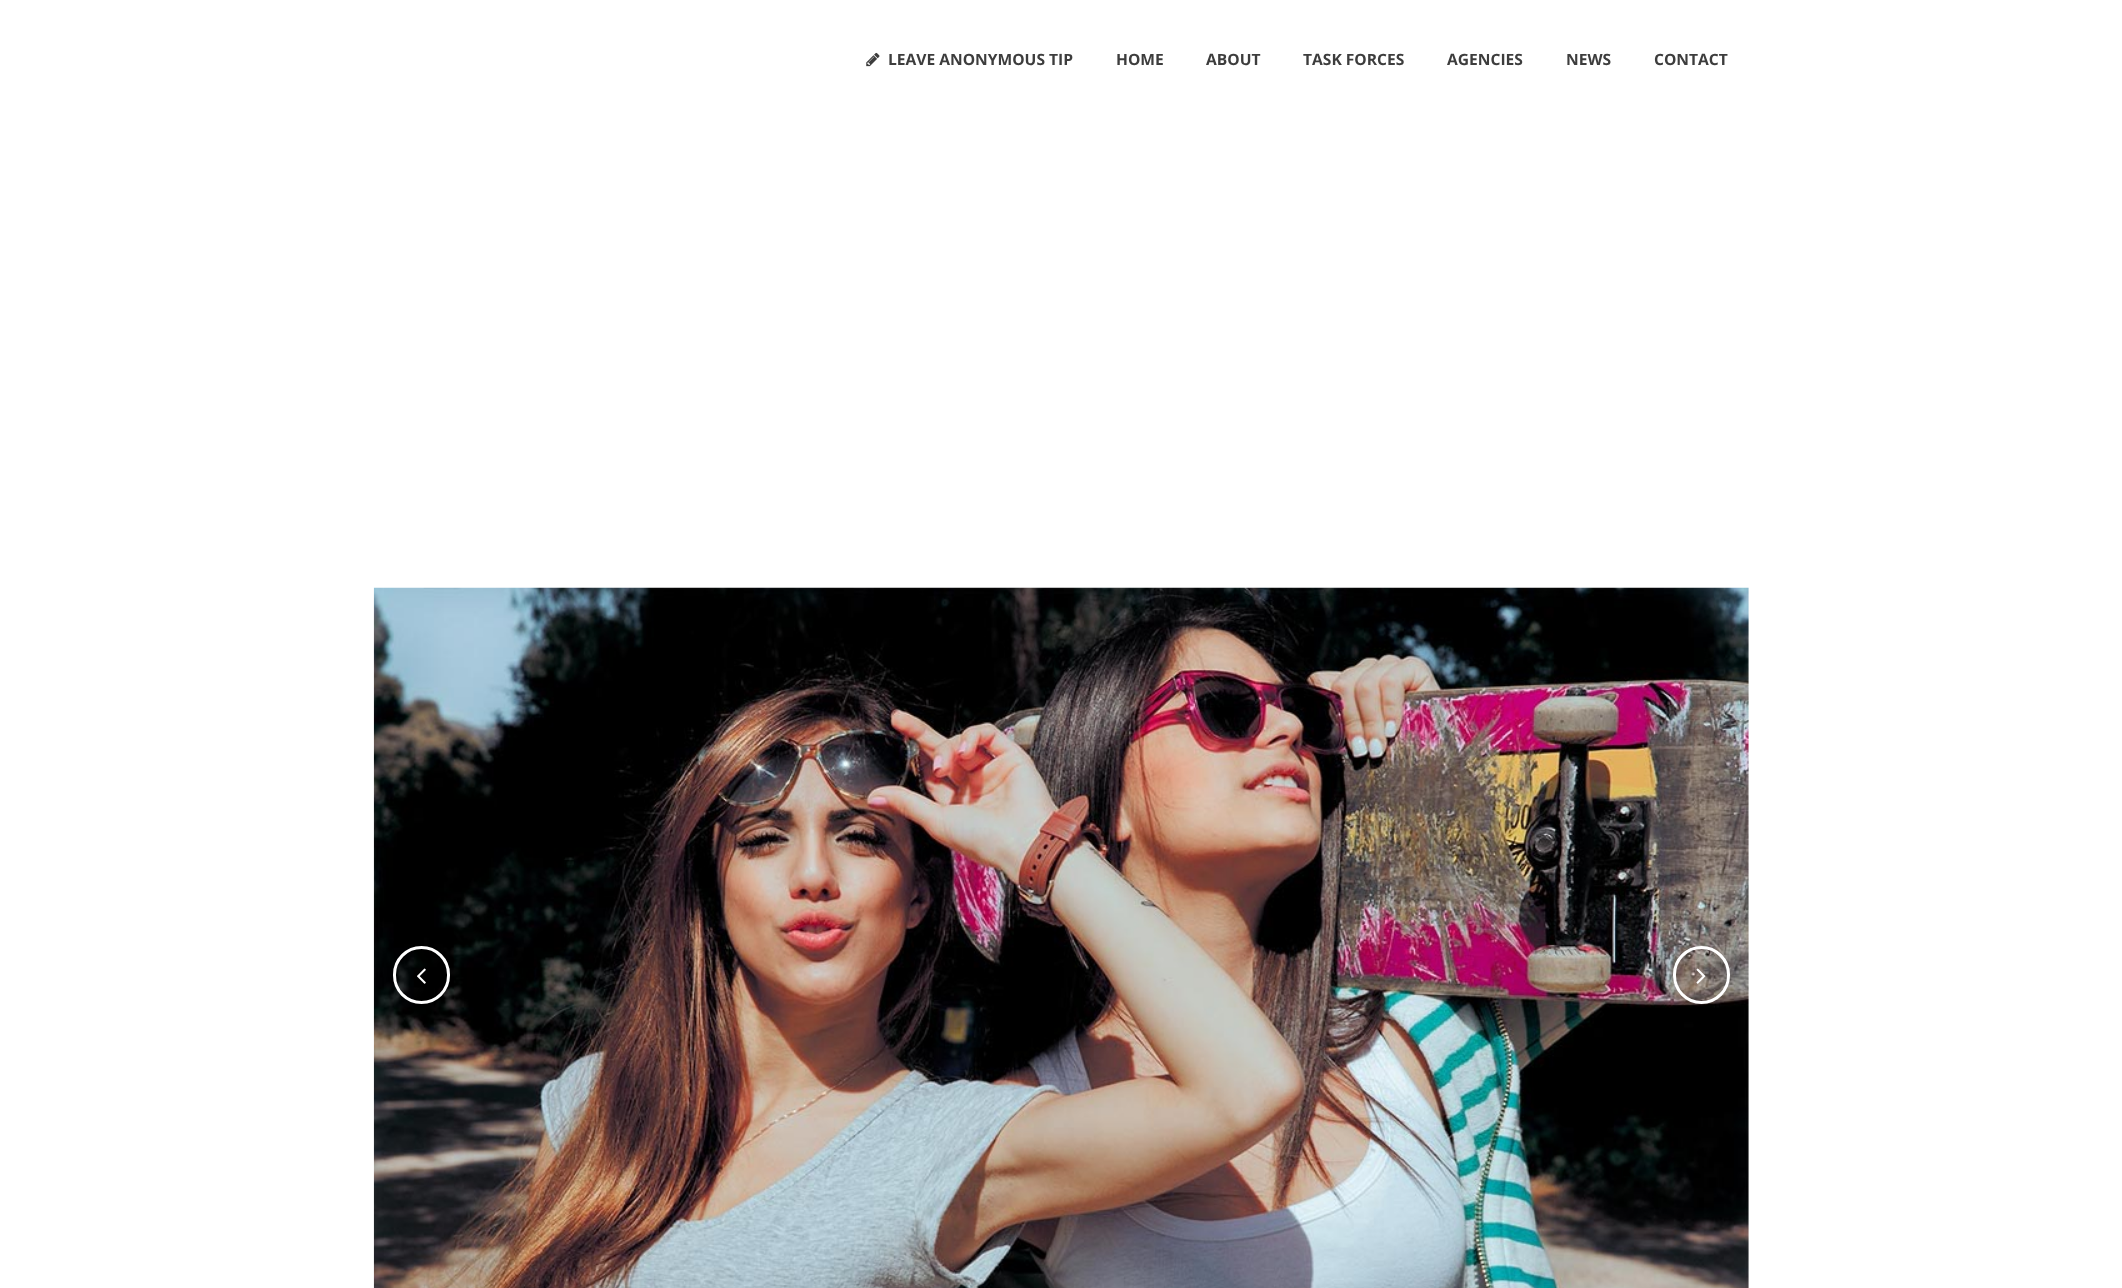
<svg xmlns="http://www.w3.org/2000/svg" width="2122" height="1288">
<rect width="100%" height="100%" fill="#fff"/>
<image x="866" y="52" width="14" height="15" href="media/1.png"/>
<text x="888" y="65" style="font-family:Open Sans;font-size:15.6px;font-weight:bold;fill:#3d3d3d">LEAVE ANONYMOUS TIP</text>
<text x="1116" y="65" style="font-family:Open Sans;font-size:15.6px;font-weight:bold;fill:#3d3d3d">HOME</text>
<text x="1206" y="65" style="font-family:Open Sans;font-size:15.6px;font-weight:bold;fill:#3d3d3d">ABOUT</text>
<text x="1303" y="65" style="font-family:Open Sans;font-size:15.6px;font-weight:bold;fill:#3d3d3d">TASK FORCES</text>
<text x="1447" y="65" style="font-family:Open Sans;font-size:15.6px;font-weight:bold;fill:#3d3d3d">AGENCIES</text>
<text x="1566" y="65" style="font-family:Open Sans;font-size:15.6px;font-weight:bold;fill:#3d3d3d">NEWS</text>
<text x="1654" y="65" style="font-family:Open Sans;font-size:15.6px;font-weight:bold;fill:#3d3d3d">CONTACT</text>
<image x="373" y="587" width="1376" height="701" href="media/2.png"/>
<rect x="394.5" y="947.5" width="54" height="55" rx="27" fill="none" stroke="#fff" stroke-width="3"/>
<image x="417" y="968" width="9" height="16" href="media/3.png"/>
<rect x="1674.5" y="947.5" width="54" height="55" rx="27" fill="none" stroke="#fff" stroke-width="3"/>
<image x="1696" y="968" width="10" height="16" href="media/4.png"/>
</svg>
